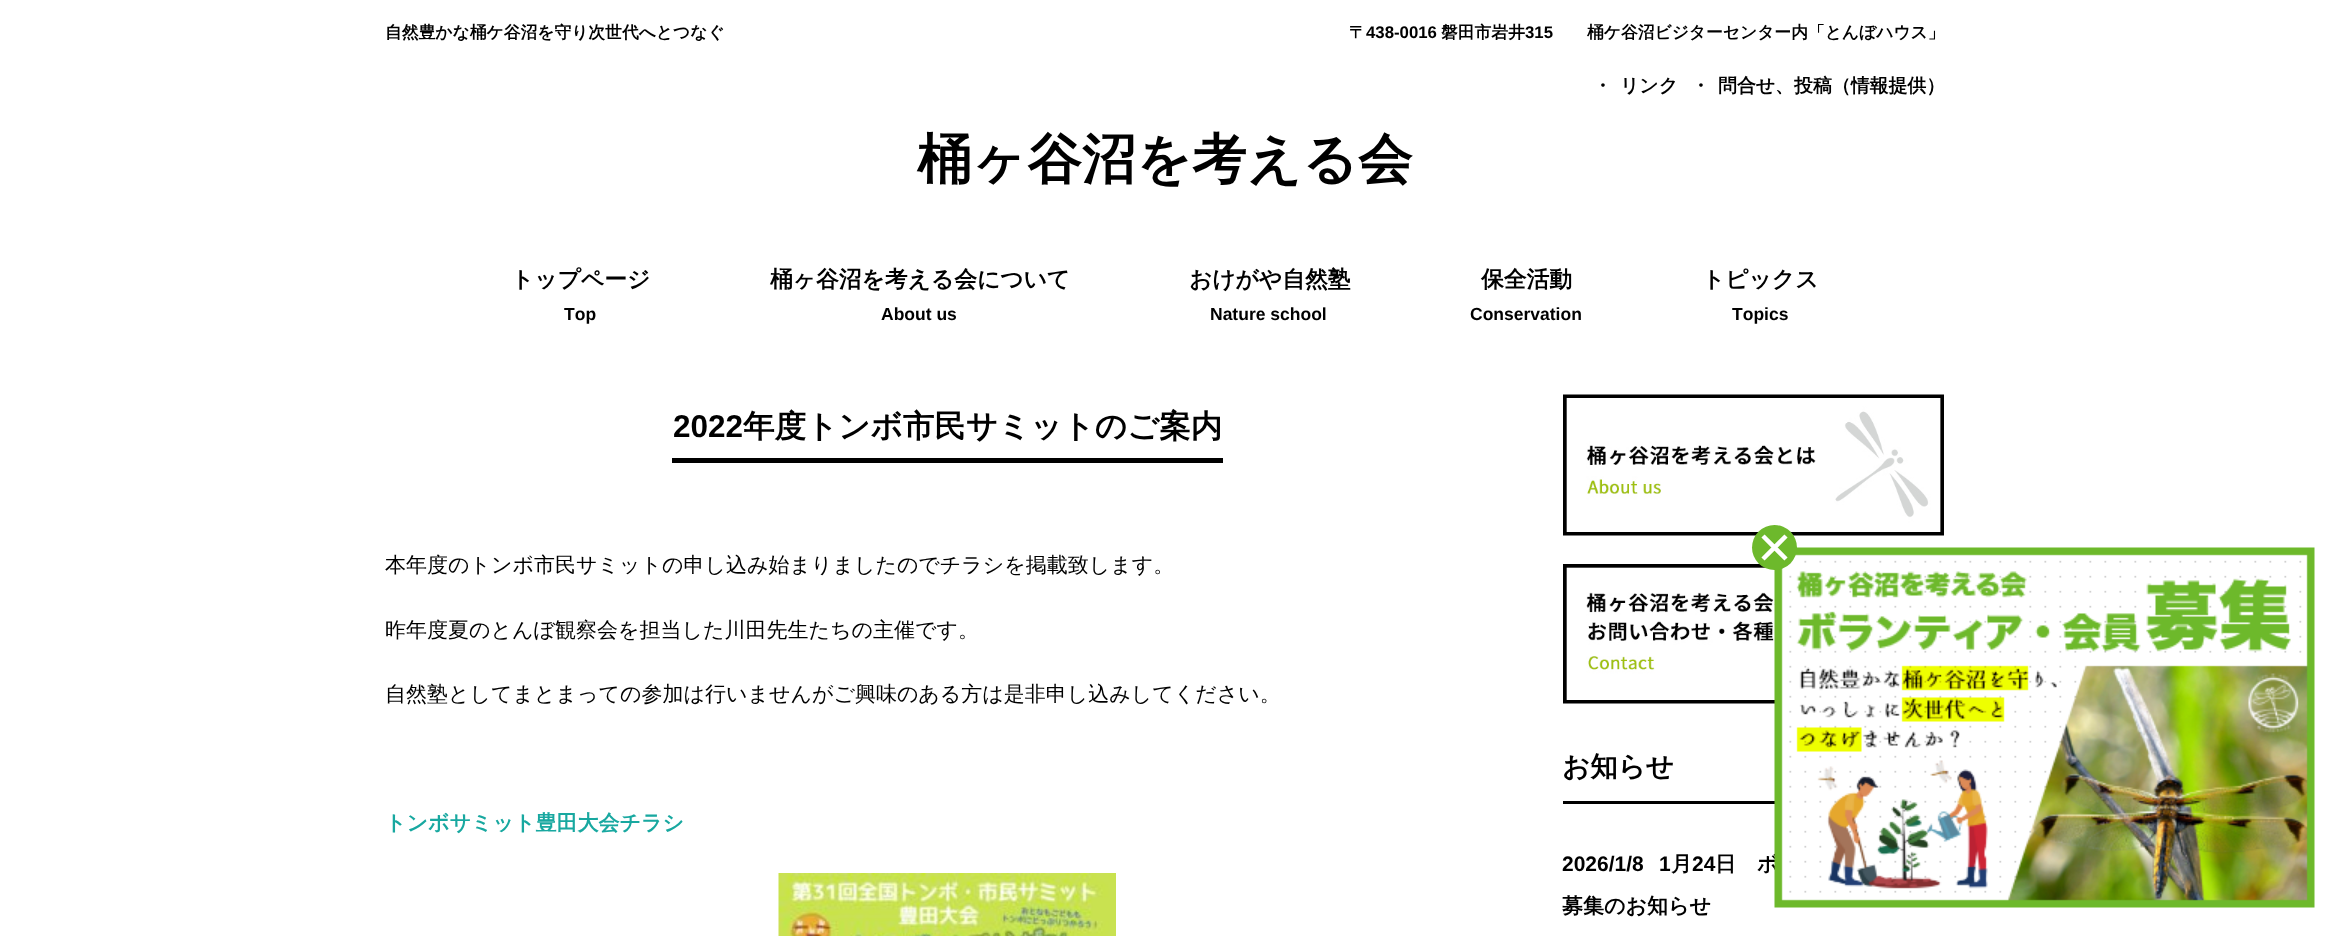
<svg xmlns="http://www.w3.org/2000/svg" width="2329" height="936">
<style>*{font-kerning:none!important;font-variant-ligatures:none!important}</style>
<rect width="100%" height="100%" fill="#fff"/>
<text x="385" y="38" style="font-family:WenQuanYi Zen Hei;font-size:16.8px;font-weight:bold;fill:#000">自然豊かな桶ケ谷沼を守り次世代へとつなぐ</text>
<text x="1349" y="38" style="font-family:WenQuanYi Zen Hei;font-size:16.8px;font-weight:bold;fill:#000">〒</text>
<text x="1366" y="38" style="font-family:Liberation Sans;font-size:16.8px;font-weight:bold;fill:#000">438-0016</text>
<text x="1441" y="38" style="font-family:WenQuanYi Zen Hei;font-size:16.8px;font-weight:bold;fill:#000">磐田市岩井</text>
<text x="1525" y="38" style="font-family:Liberation Sans;font-size:16.8px;font-weight:bold;fill:#000">315</text>
<text x="1587" y="38" style="font-family:WenQuanYi Zen Hei;font-size:16.8px;font-weight:bold;fill:#000">桶ケ谷沼ビジターセンター内「とんぼハウス」</text>
<text x="1593" y="92" style="font-family:WenQuanYi Zen Hei;font-size:18.9px;font-weight:bold;fill:#000">・</text>
<text x="1620" y="92" style="font-family:WenQuanYi Zen Hei;font-size:18.9px;font-weight:bold;fill:#000">リンク</text>
<text x="1691" y="92" style="font-family:WenQuanYi Zen Hei;font-size:18.9px;font-weight:bold;fill:#000">・</text>
<text x="1718" y="92" style="font-family:WenQuanYi Zen Hei;font-size:18.9px;font-weight:bold;fill:#000">問合せ、投稿（情報提供）</text>
<text x="917" y="178" style="font-family:WenQuanYi Zen Hei;font-size:54.5px;font-weight:bold;fill:#000">桶ヶ谷沼を考える会</text>
<text x="511" y="287" style="font-family:WenQuanYi Zen Hei;font-size:22.75px;font-weight:bold;fill:#000">トップページ</text>
<text x="564" y="320" style="font-family:Liberation Sans;font-size:17.5px;font-weight:bold;fill:#000">Top</text>
<text x="770" y="287" style="font-family:WenQuanYi Zen Hei;font-size:22.75px;font-weight:bold;fill:#000">桶ヶ谷沼を考える会について</text>
<text x="881" y="320" style="font-family:Liberation Sans;font-size:17.5px;font-weight:bold;fill:#000">About us</text>
<text x="1189" y="287" style="font-family:WenQuanYi Zen Hei;font-size:22.75px;font-weight:bold;fill:#000">おけがや自然塾</text>
<text x="1210" y="320" style="font-family:Liberation Sans;font-size:17.5px;font-weight:bold;fill:#000">Nature school</text>
<text x="1481" y="287" style="font-family:WenQuanYi Zen Hei;font-size:22.75px;font-weight:bold;fill:#000">保全活動</text>
<text x="1470" y="320" style="font-family:Liberation Sans;font-size:17.5px;font-weight:bold;fill:#000">Conservation</text>
<text x="1702" y="287" style="font-family:WenQuanYi Zen Hei;font-size:22.75px;font-weight:bold;fill:#000">トピックス</text>
<text x="1732" y="320" style="font-family:Liberation Sans;font-size:17.5px;font-weight:bold;fill:#000">Topics</text>
<text x="673" y="437" style="font-family:Liberation Sans;font-size:31.5px;font-weight:bold;fill:#000">2022</text>
<rect x="672" y="458" width="551" height="5" fill="#000"/>
<text x="743" y="437" style="font-family:WenQuanYi Zen Hei;font-size:31.5px;font-weight:bold;fill:#000">年度トンボ市民サミットのご案内</text>
<text x="385" y="572" style="font-family:WenQuanYi Zen Hei;font-size:21px;font-weight:500;fill:#000">本年度のトンボ市民サミットの申し込み始まりましたのでチラシを掲載致します。</text>
<text x="385" y="637" style="font-family:WenQuanYi Zen Hei;font-size:21px;font-weight:500;fill:#000">昨年度夏のとんぼ観察会を担当した川田先生たちの主催です。</text>
<text x="385" y="701" style="font-family:WenQuanYi Zen Hei;font-size:21px;font-weight:500;fill:#000">自然塾としてまとまっての参加は行いませんがご興味のある方は是非申し込みしてください。</text>
<text x="385" y="830" style="font-family:WenQuanYi Zen Hei;font-size:21px;font-weight:bold;fill:#18a8a0">トンボサミット豊田大会チラシ</text>
<image x="778" y="873" width="338" height="63" href="media/1.png"/>
<image x="1563" y="394" width="381" height="142" href="media/2.png"/>
<image x="1563" y="564" width="212" height="140" href="media/3.png"/>
<rect x="1563" y="801" width="212" height="3" fill="#000"/>
<text x="1562" y="776" style="font-family:WenQuanYi Zen Hei;font-size:27.5px;font-weight:bold;fill:#000">お知らせ</text>
<text x="1562" y="871" style="font-family:Liberation Sans;font-size:21px;font-weight:bold;fill:#000">2026/1/8</text>
<text x="1659" y="871" style="font-family:Liberation Sans;font-size:21px;font-weight:bold;fill:#000">1</text>
<text x="1671" y="871" style="font-family:WenQuanYi Zen Hei;font-size:21px;font-weight:bold;fill:#000">月</text>
<text x="1692" y="871" style="font-family:Liberation Sans;font-size:21px;font-weight:bold;fill:#000">24</text>
<text x="1715" y="871" style="font-family:WenQuanYi Zen Hei;font-size:21px;font-weight:bold;fill:#000">日　ボ</text>
<text x="1562" y="913" style="font-family:WenQuanYi Zen Hei;font-size:21px;font-weight:bold;fill:#000">募集のお知らせ</text>
<image x="1774" y="547" width="541" height="361" href="media/4.png"/>
<circle cx="1774.5" cy="547.5" r="22.5" fill="#6db92c"/>
<path d="M1763 536l23 23m0-23l-23 23" fill="none" stroke="#fff" stroke-width="4.5"/>
</svg>
